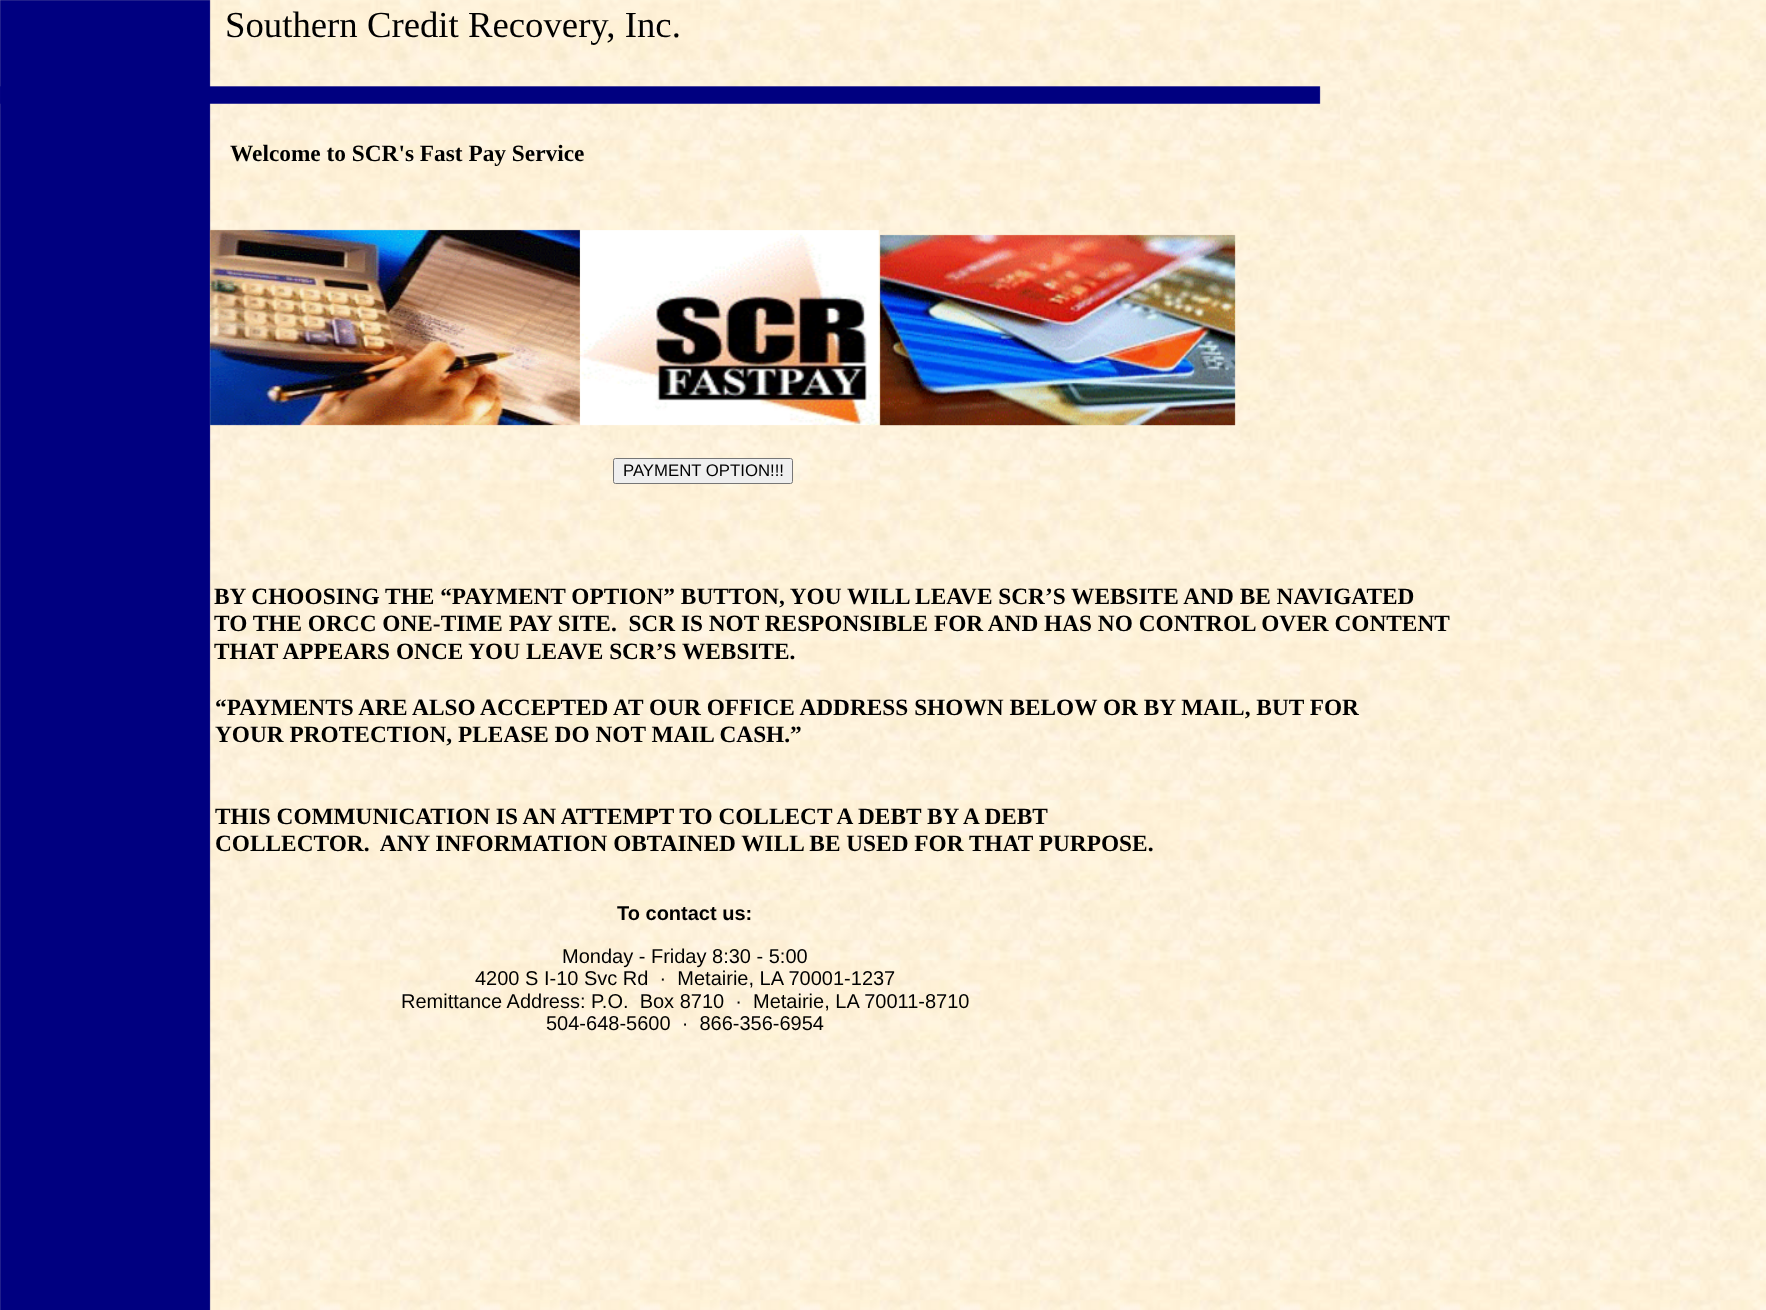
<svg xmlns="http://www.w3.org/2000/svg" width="1766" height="1310">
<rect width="100%" height="100%" fill="#fff"/>
<image x="0" y="0" width="1766" height="1310" href="media/1.png"/>
<image x="0" y="0" width="211" height="1310" href="media/2.png"/>
<text x="225" y="37" style="font-family:Liberation Serif;font-size:36.75px;fill:#000">Southern Credit Recovery, Inc.</text>
<image x="0" y="86" width="1321" height="18" href="media/3.png"/>
<text x="230" y="161" style="font-family:Liberation Serif;font-size:23.33px;font-weight:bold;fill:#000">Welcome to SCR's Fast Pay Service</text>
<image x="209" y="229" width="372" height="197" href="media/4.png"/>
<image x="579" y="230" width="300" height="196" href="media/5.png"/>
<image x="879" y="234" width="357" height="192" href="media/6.png"/>
<rect x="613.5" y="458.5" width="179" height="25" rx="2" fill="#efefef" stroke="#767676"/>
<text x="623" y="476" style="font-family:Liberation Sans;font-size:16.75px;fill:#000">PAYMENT OPTION!!!</text>
<text x="214" y="604" style="font-family:Liberation Serif;font-size:23.33px;font-weight:bold;fill:#000">BY CHOOSING THE “PAYMENT OPTION” BUTTON, YOU WILL LEAVE SCR’S WEBSITE AND BE NAVIGATED</text>
<text x="214" y="631" style="font-family:Liberation Serif;font-size:23.33px;font-weight:bold;fill:#000" xml:space="preserve">TO THE ORCC ONE-TIME PAY SITE.  SCR IS NOT RESPONSIBLE FOR AND HAS NO CONTROL OVER CONTENT</text>
<text x="214" y="659" style="font-family:Liberation Serif;font-size:23.33px;font-weight:bold;fill:#000">THAT APPEARS ONCE YOU LEAVE SCR’S WEBSITE.</text>
<text x="215" y="715" style="font-family:Liberation Serif;font-size:23.33px;font-weight:bold;fill:#000">“PAYMENTS ARE ALSO ACCEPTED AT OUR OFFICE ADDRESS SHOWN BELOW OR BY MAIL, BUT FOR</text>
<text x="215" y="742" style="font-family:Liberation Serif;font-size:23.33px;font-weight:bold;fill:#000">YOUR PROTECTION, PLEASE DO NOT MAIL CASH.”</text>
<text x="215" y="824" style="font-family:Liberation Serif;font-size:23.33px;font-weight:bold;fill:#000">THIS COMMUNICATION IS AN ATTEMPT TO COLLECT A DEBT BY A DEBT</text>
<text x="215" y="851" style="font-family:Liberation Serif;font-size:23.33px;font-weight:bold;fill:#000" xml:space="preserve">COLLECTOR.  ANY INFORMATION OBTAINED WILL BE USED FOR THAT PURPOSE.</text>
<text x="617" y="920" style="font-family:Liberation Sans;font-size:20px;font-weight:bold;fill:#000">To contact us:</text>
<text x="562" y="963" style="font-family:Liberation Sans;font-size:20px;fill:#000">Monday - Friday 8:30 - 5:00</text>
<text x="475" y="985" style="font-family:Liberation Sans;font-size:20px;fill:#000" xml:space="preserve">4200 S I-10 Svc Rd  ·  Metairie, LA 70001-1237</text>
<text x="401" y="1008" style="font-family:Liberation Sans;font-size:20px;fill:#000" xml:space="preserve">Remittance Address: P.O.  Box 8710  ·  Metairie, LA 70011-8710</text>
<text x="546" y="1030" style="font-family:Liberation Sans;font-size:20px;fill:#000" xml:space="preserve">504-648-5600  ·  866-356-6954</text>
</svg>
